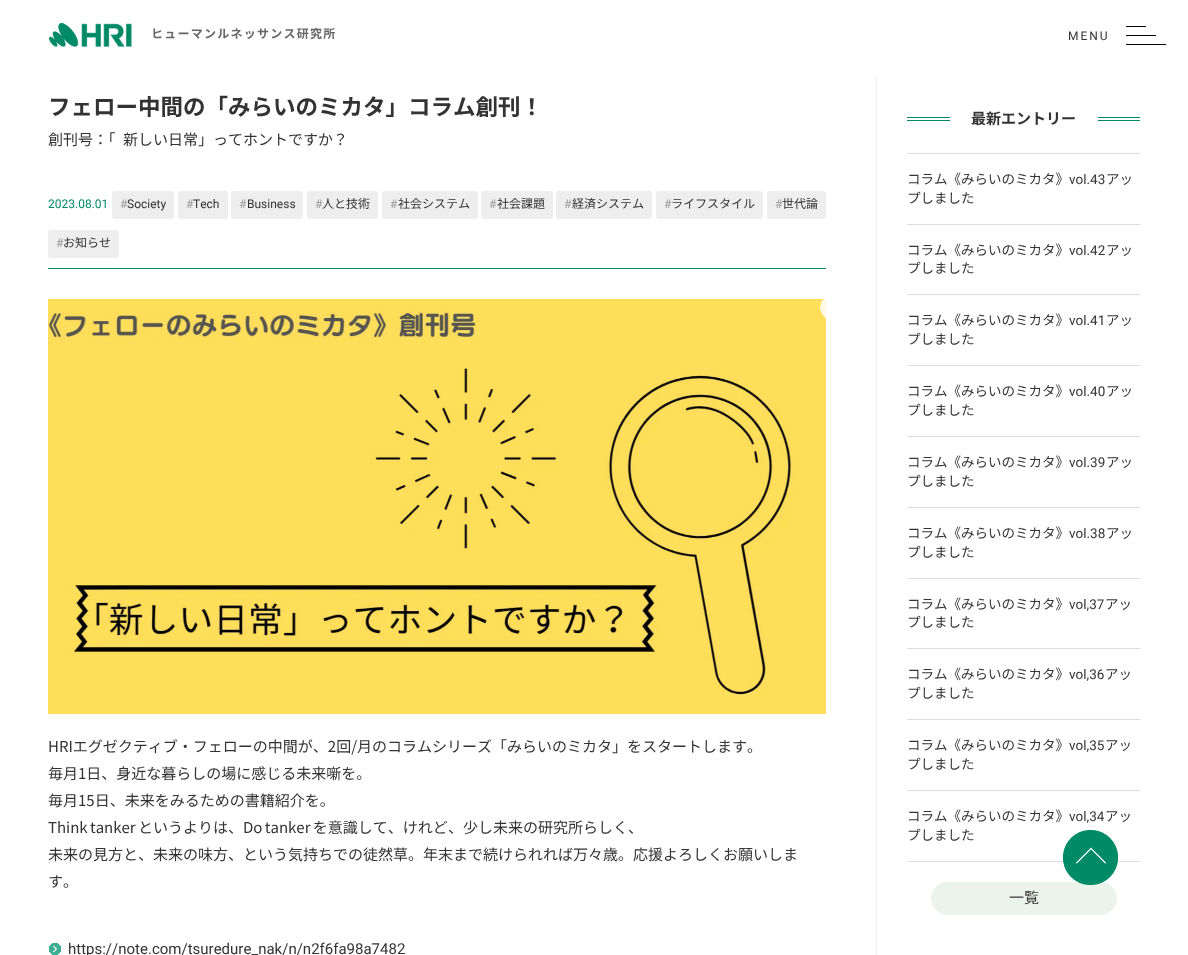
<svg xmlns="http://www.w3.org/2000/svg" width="1188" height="955">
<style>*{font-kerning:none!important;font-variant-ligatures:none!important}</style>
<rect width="100%" height="100%" fill="#fff"/>
<image x="48" y="23" width="84" height="24" href="media/1.png"/>
<text x="151" y="38" style="font-family:Noto Sans JP;font-size:12px;font-weight:bold;letter-spacing:1.25px;fill:#666">ヒューマンルネッサンス研究所</text>
<text x="1068" y="40" style="font-family:Roboto;font-size:12px;letter-spacing:2px;fill:#333">MENU</text>
<rect x="1126" y="35" width="30" height="1" fill="#030303"/>
<rect x="1126" y="26" width="20" height="1" fill="#030303"/>
<rect x="1126" y="44" width="40" height="1" fill="#030303"/>
<rect x="876" y="77" width="1" height="878" fill="#f1f1f1"/>
<rect x="48" y="268" width="778" height="1" fill="#008b68"/>
<text x="48" y="115" style="font-family:Noto Sans JP;font-size:22.5px;font-weight:bold;fill:#333">フェロー中間の「みらいのミカタ」コラム創刊！</text>
<text x="48" y="145" style="font-family:Noto Sans JP;font-size:15px;fill:#333">創刊号：「</text>
<text x="123" y="145" style="font-family:Noto Sans JP;font-size:15px;fill:#333">新しい日常」ってホントですか？</text>
<text x="48" y="208" style="font-family:Roboto;font-size:12px;fill:#008b68">2023.08.01</text>
<rect x="112" y="191" width="62" height="28" rx="3" fill="#eee"/>
<text x="120" y="208" style="font-family:Roboto;font-size:12px;fill:#999">#</text>
<text x="127" y="208" style="font-family:Roboto;font-size:12px;fill:#333">Society</text>
<rect x="178" y="191" width="50" height="28" rx="3" fill="#eee"/>
<text x="186" y="208" style="font-family:Roboto;font-size:12px;fill:#999">#</text>
<text x="193" y="208" style="font-family:Roboto;font-size:12px;fill:#333">Tech</text>
<rect x="231" y="191" width="72" height="28" rx="3" fill="#eee"/>
<text x="239" y="208" style="font-family:Roboto;font-size:12px;fill:#999">#</text>
<text x="247" y="208" style="font-family:Roboto;font-size:12px;fill:#333">Business</text>
<rect x="307" y="191" width="71" height="28" rx="3" fill="#eee"/>
<text x="315" y="208" style="font-family:Roboto;font-size:12px;fill:#999">#</text>
<text x="322" y="208" style="font-family:Noto Sans JP;font-size:12px;fill:#333">人と技術</text>
<rect x="382" y="191" width="96" height="28" rx="3" fill="#eee"/>
<text x="390" y="208" style="font-family:Roboto;font-size:12px;fill:#999">#</text>
<text x="398" y="208" style="font-family:Noto Sans JP;font-size:12px;fill:#333">社会システム</text>
<rect x="481" y="191" width="72" height="28" rx="3" fill="#eee"/>
<text x="489" y="208" style="font-family:Roboto;font-size:12px;fill:#999">#</text>
<text x="497" y="208" style="font-family:Noto Sans JP;font-size:12px;fill:#333">社会課題</text>
<rect x="556" y="191" width="96" height="28" rx="3" fill="#eee"/>
<text x="564" y="208" style="font-family:Roboto;font-size:12px;fill:#999">#</text>
<text x="572" y="208" style="font-family:Noto Sans JP;font-size:12px;fill:#333">経済システム</text>
<rect x="656" y="191" width="107" height="28" rx="3" fill="#eee"/>
<text x="664" y="208" style="font-family:Roboto;font-size:12px;fill:#999">#</text>
<text x="671" y="208" style="font-family:Noto Sans JP;font-size:12px;fill:#333">ライフスタイル</text>
<rect x="767" y="191" width="59" height="28" rx="3" fill="#eee"/>
<text x="775" y="208" style="font-family:Roboto;font-size:12px;fill:#999">#</text>
<text x="782" y="208" style="font-family:Noto Sans JP;font-size:12px;fill:#333">世代論</text>
<rect x="48" y="230" width="71" height="28" rx="3" fill="#eee"/>
<text x="56" y="247" style="font-family:Roboto;font-size:12px;fill:#999">#</text>
<text x="63" y="247" style="font-family:Noto Sans JP;font-size:12px;fill:#333">お知らせ</text>
<image x="48" y="299" width="778" height="415" href="media/2.png"/>
<text x="48" y="752" style="font-family:Noto Sans JP;font-size:15px;fill:#333">HRIエグゼクティブ・フェローの中間が、2回/月のコラムシリーズ「みらいのミカタ」をスタートします</text>
<text x="747" y="752" style="font-family:Noto Sans JP;font-size:15px;fill:#333">。</text>
<text x="48" y="779" style="font-family:Noto Sans JP;font-size:15px;fill:#333">毎月1日、身近な暮らしの場に感じる未来噺を。</text>
<text x="48" y="806" style="font-family:Noto Sans JP;font-size:15px;fill:#333">毎月15日、未来をみるための書籍紹介を。</text>
<text x="48" y="833" word-spacing="-1" style="font-family:Noto Sans JP;font-size:15px;fill:#333">Think tanker というよりは、Do tanker を意識して、けれど</text>
<text x="448" y="833" word-spacing="-1" style="font-family:Noto Sans JP;font-size:15px;fill:#333">、少し未来の研究所らしく、</text>
<text x="48" y="860" style="font-family:Noto Sans JP;font-size:15px;fill:#333">未来の見方と、未来の味方、という気持ちでの徒然草。年末まで続けられれば万々歳。応援よろしくお願いしま</text>
<text x="48" y="887" style="font-family:Noto Sans JP;font-size:15px;fill:#333">す。</text>
<image x="49" y="943" width="12" height="12" href="media/3.png"/>
<text x="68" y="954" style="font-family:Roboto;font-size:15px;fill:#333">https://note.com/tsuredure_nak/n/n2f6fa98a7482</text>
<rect x="907" y="117" width="233" height="1" fill="#008b68"/>
<rect x="907" y="120" width="233" height="1" fill="#008b68"/>
<rect x="950" y="117" width="148" height="4" fill="#fff"/>
<text x="971" y="124" style="font-family:Noto Sans JP;font-size:15px;font-weight:bold;fill:#333">最新エントリー</text>
<rect x="907" y="153" width="233" height="1" fill="#ddd"/>
<rect x="907" y="224" width="233" height="1" fill="#ddd"/>
<text x="907" y="184" style="font-family:Noto Sans JP;font-size:13.5px;fill:#333">コラム《みらいのミカタ》</text>
<text x="1069" y="184" style="font-family:Roboto;font-size:13.5px;fill:#333">vol.43</text>
<text x="1106" y="184" style="font-family:Noto Sans JP;font-size:13.5px;fill:#333">アッ</text>
<text x="907" y="203" style="font-family:Noto Sans JP;font-size:13.5px;fill:#333">プしました</text>
<rect x="907" y="294" width="233" height="1" fill="#ddd"/>
<text x="907" y="255" style="font-family:Noto Sans JP;font-size:13.5px;fill:#333">コラム《みらいのミカタ》</text>
<text x="1069" y="255" style="font-family:Roboto;font-size:13.5px;fill:#333">vol.42</text>
<text x="1106" y="255" style="font-family:Noto Sans JP;font-size:13.5px;fill:#333">アッ</text>
<text x="907" y="273" style="font-family:Noto Sans JP;font-size:13.5px;fill:#333">プしました</text>
<rect x="907" y="365" width="233" height="1" fill="#ddd"/>
<text x="907" y="325" style="font-family:Noto Sans JP;font-size:13.5px;fill:#333">コラム《みらいのミカタ》</text>
<text x="1069" y="325" style="font-family:Roboto;font-size:13.5px;fill:#333">vol.41</text>
<text x="1106" y="325" style="font-family:Noto Sans JP;font-size:13.5px;fill:#333">アッ</text>
<text x="907" y="344" style="font-family:Noto Sans JP;font-size:13.5px;fill:#333">プしました</text>
<rect x="907" y="436" width="233" height="1" fill="#ddd"/>
<text x="907" y="396" style="font-family:Noto Sans JP;font-size:13.5px;fill:#333">コラム《みらいのミカタ》</text>
<text x="1069" y="396" style="font-family:Roboto;font-size:13.5px;fill:#333">vol.40</text>
<text x="1106" y="396" style="font-family:Noto Sans JP;font-size:13.5px;fill:#333">アッ</text>
<text x="907" y="415" style="font-family:Noto Sans JP;font-size:13.5px;fill:#333">プしました</text>
<rect x="907" y="507" width="233" height="1" fill="#ddd"/>
<text x="907" y="467" style="font-family:Noto Sans JP;font-size:13.5px;fill:#333">コラム《みらいのミカタ》</text>
<text x="1069" y="467" style="font-family:Roboto;font-size:13.5px;fill:#333">vol.39</text>
<text x="1106" y="467" style="font-family:Noto Sans JP;font-size:13.5px;fill:#333">アッ</text>
<text x="907" y="486" style="font-family:Noto Sans JP;font-size:13.5px;fill:#333">プしました</text>
<rect x="907" y="578" width="233" height="1" fill="#ddd"/>
<text x="907" y="538" style="font-family:Noto Sans JP;font-size:13.5px;fill:#333">コラム《みらいのミカタ》</text>
<text x="1069" y="538" style="font-family:Roboto;font-size:13.5px;fill:#333">vol.38</text>
<text x="1106" y="538" style="font-family:Noto Sans JP;font-size:13.5px;fill:#333">アッ</text>
<text x="907" y="557" style="font-family:Noto Sans JP;font-size:13.5px;fill:#333">プしました</text>
<rect x="907" y="648" width="233" height="1" fill="#ddd"/>
<text x="907" y="609" style="font-family:Noto Sans JP;font-size:13.5px;fill:#333">コラム《みらいのミカタ》</text>
<text x="1069" y="609" style="font-family:Roboto;font-size:13.5px;fill:#333">vol,37</text>
<text x="1105" y="609" style="font-family:Noto Sans JP;font-size:13.5px;fill:#333">アッ</text>
<text x="907" y="627" style="font-family:Noto Sans JP;font-size:13.5px;fill:#333">プしました</text>
<rect x="907" y="719" width="233" height="1" fill="#ddd"/>
<text x="907" y="679" style="font-family:Noto Sans JP;font-size:13.5px;fill:#333">コラム《みらいのミカタ》</text>
<text x="1069" y="679" style="font-family:Roboto;font-size:13.5px;fill:#333">vol,36</text>
<text x="1105" y="679" style="font-family:Noto Sans JP;font-size:13.5px;fill:#333">アッ</text>
<text x="907" y="698" style="font-family:Noto Sans JP;font-size:13.5px;fill:#333">プしました</text>
<rect x="907" y="790" width="233" height="1" fill="#ddd"/>
<text x="907" y="750" style="font-family:Noto Sans JP;font-size:13.5px;fill:#333">コラム《みらいのミカタ》</text>
<text x="1069" y="750" style="font-family:Roboto;font-size:13.5px;fill:#333">vol,35</text>
<text x="1105" y="750" style="font-family:Noto Sans JP;font-size:13.5px;fill:#333">アッ</text>
<text x="907" y="769" style="font-family:Noto Sans JP;font-size:13.5px;fill:#333">プしました</text>
<rect x="907" y="861" width="233" height="1" fill="#ddd"/>
<text x="907" y="821" style="font-family:Noto Sans JP;font-size:13.5px;fill:#333">コラム《みらいのミカタ》</text>
<text x="1069" y="821" style="font-family:Roboto;font-size:13.5px;fill:#333">vol,34</text>
<text x="1105" y="821" style="font-family:Noto Sans JP;font-size:13.5px;fill:#333">アッ</text>
<text x="907" y="840" style="font-family:Noto Sans JP;font-size:13.5px;fill:#333">プしました</text>
<rect x="931" y="882" width="186" height="33" rx="16.5" fill="#eaf4eb"/>
<text x="1009" y="903" style="font-family:Noto Sans JP;font-size:15px;fill:#333">一覧</text>
<image x="1063" y="830" width="55" height="55" href="media/4.png"/>
</svg>
